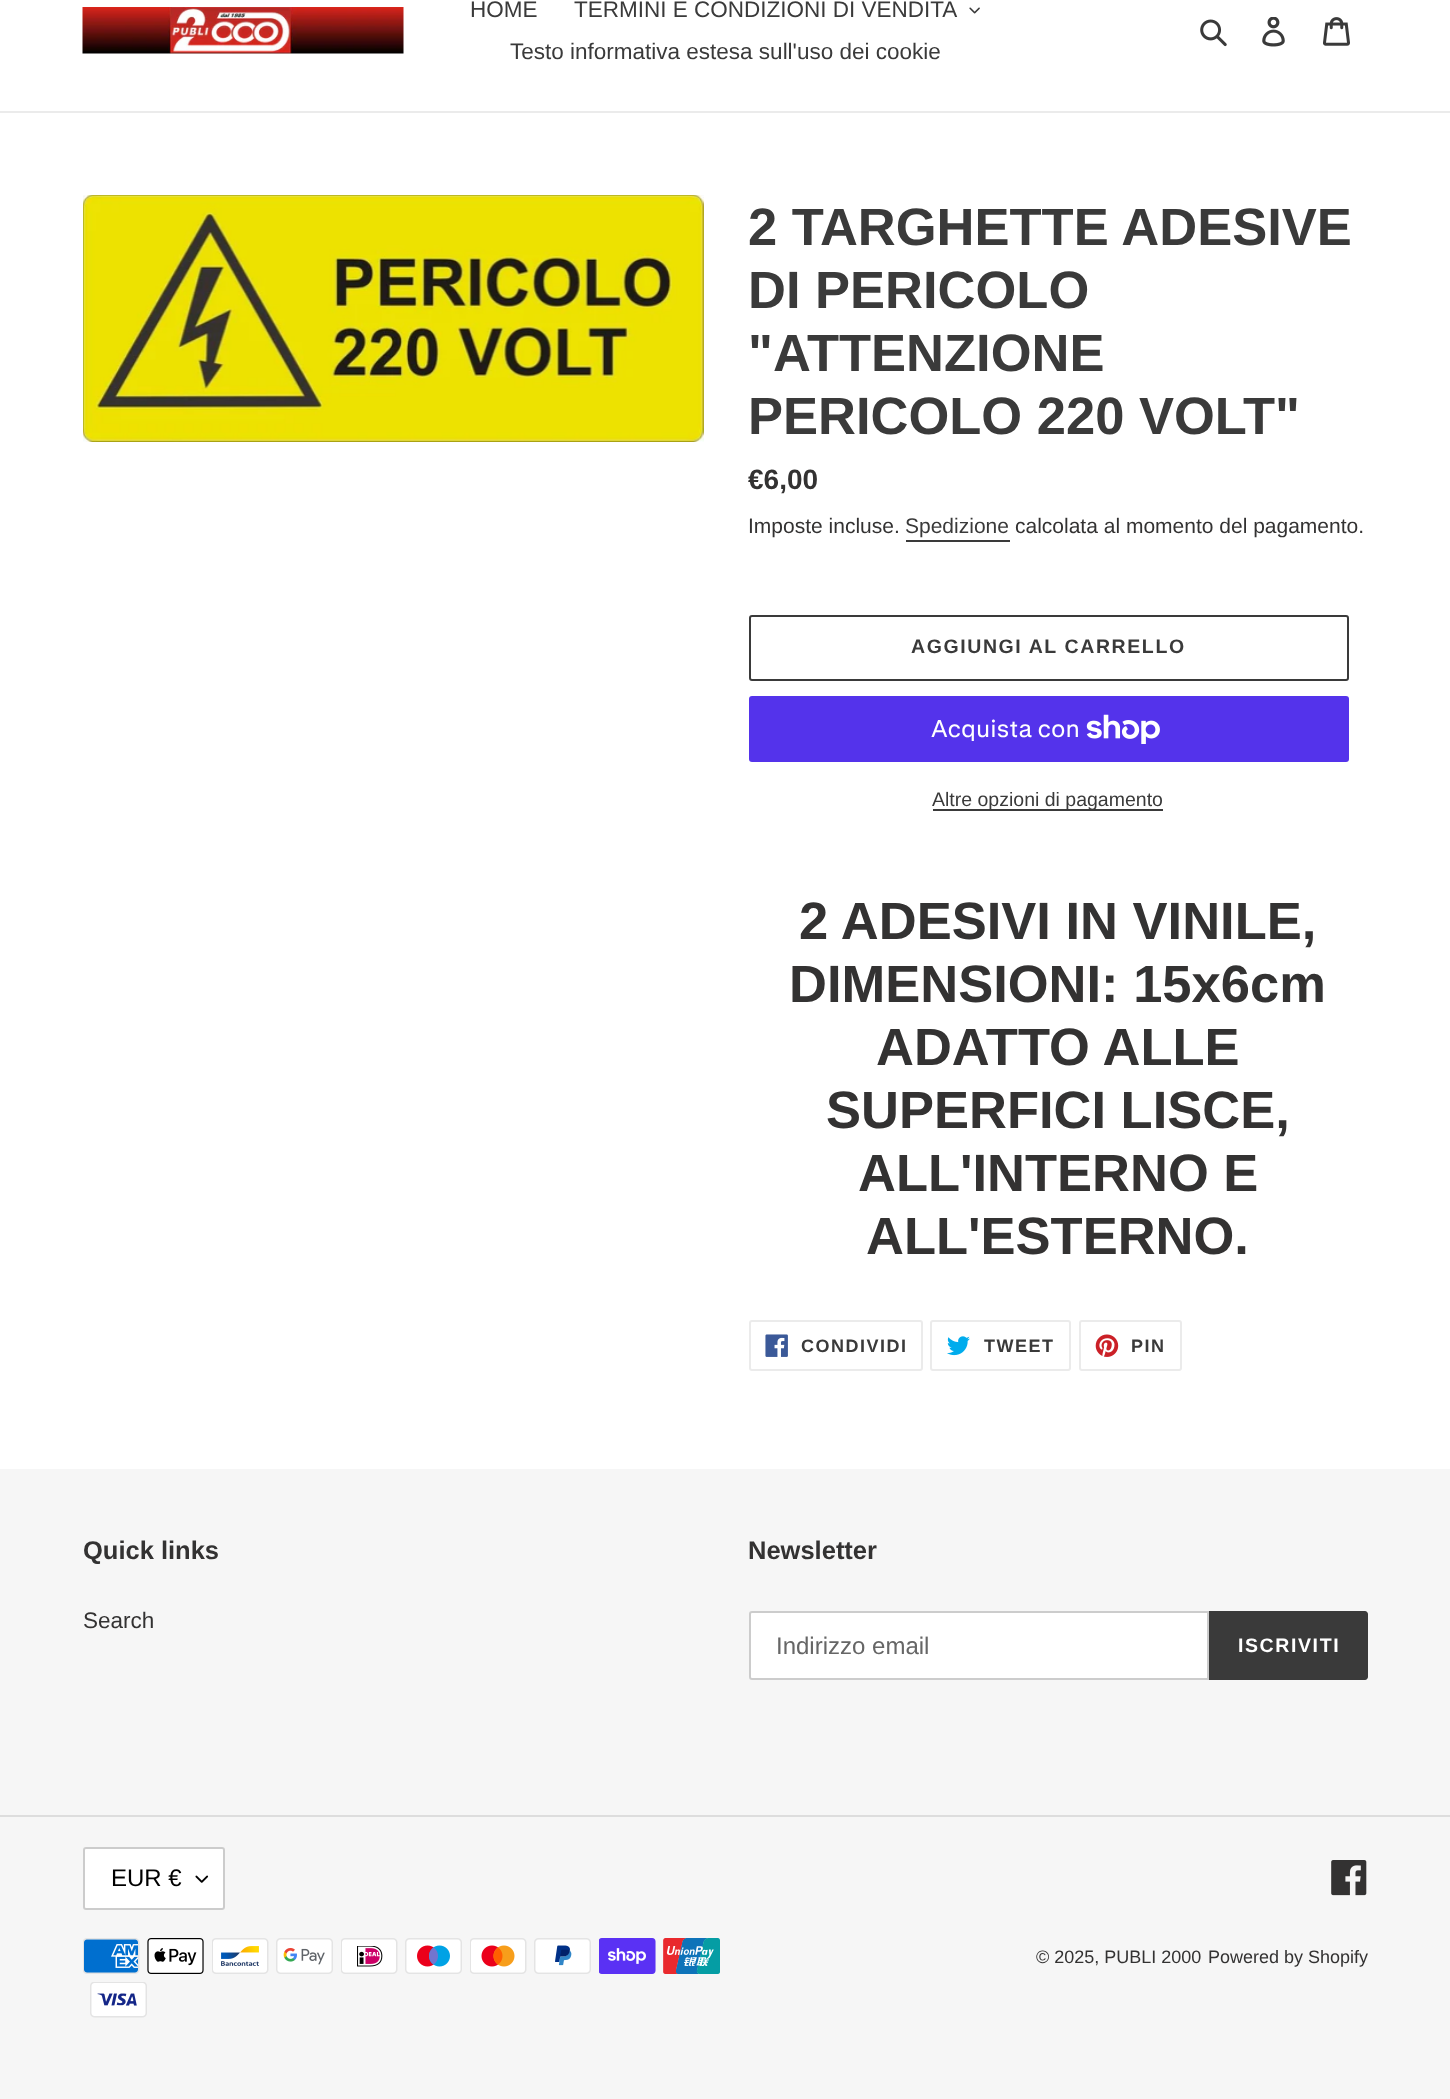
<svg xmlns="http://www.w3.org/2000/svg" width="1450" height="2099">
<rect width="100%" height="100%" fill="#fff"/>
<rect y="111" width="1450" height="2" fill="#ebebeb"/>
<image x="82" y="7" width="322" height="47" href="media/1.png"/>
<text x="470" y="17" style="font-family:Liberation Sans;font-size:22.5px;fill:#3a3a3a">HOME</text>
<text x="574" y="17" style="font-family:Liberation Sans;font-size:22.5px;fill:#3a3a3a">TERMINI E CONDIZIONI DI VENDITA</text>
<image x="969" y="7" width="11" height="7" href="media/2.png"/>
<text x="510" y="59" style="font-family:Liberation Sans;font-size:22.5px;fill:#3a3a3a">Testo informativa estesa sull'uso dei cookie</text>
<image x="1200" y="19" width="27" height="28" href="media/3.png"/>
<image x="1262" y="17" width="23" height="30" href="media/4.png"/>
<image x="1323" y="17" width="27" height="29" href="media/5.png"/>
<image x="83" y="195" width="621" height="247" href="media/6.png"/>
<text x="748" y="245" style="font-family:Liberation Sans;font-size:52.5px;font-weight:bold;fill:#3a3a3a">2 TARGHETTE ADESIVE</text>
<text x="748" y="308" style="font-family:Liberation Sans;font-size:52.5px;font-weight:bold;fill:#3a3a3a">DI PERICOLO</text>
<text x="748" y="371" style="font-family:Liberation Sans;font-size:52.5px;font-weight:bold;fill:#3a3a3a">"ATTENZIONE</text>
<text x="748" y="434" style="font-family:Liberation Sans;font-size:52.5px;font-weight:bold;fill:#3a3a3a">PERICOLO 220 VOLT"</text>
<text x="748" y="489" style="font-family:Liberation Sans;font-size:28px;font-weight:bold;fill:#333232">€6,00</text>
<text x="748" y="533" style="font-family:Liberation Sans;font-size:21px;fill:#333232">Imposte incluse.</text>
<text x="905" y="533" style="font-family:Liberation Sans;font-size:21px;fill:#3a3a3a">Spedizione</text>
<rect x="906" y="540" width="104" height="2" fill="#3a3a3a"/>
<text x="1015" y="533" style="font-family:Liberation Sans;font-size:21px;fill:#333232">calcolata al momento del pagamento.</text>
<rect x="750" y="616" width="598" height="64" rx="2" fill="none" stroke="#3a3a3a" stroke-width="2"/>
<text x="911" y="653" style="font-family:Liberation Sans;font-size:19.5px;font-weight:bold;letter-spacing:1.6px;fill:#3a3a3a">AGGIUNGI AL CARRELLO</text>
<rect x="749" y="696" width="600" height="66" rx="3" fill="#5433eb"/>
<text x="931" y="737" style="font-family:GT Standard;font-size:24px;fill:#fff">Acquista con</text>
<image x="1086" y="714" width="74" height="30" href="media/7.png"/>
<rect x="933" y="809" width="230" height="2" fill="#3a3a3a"/>
<text x="932" y="806" style="font-family:Liberation Sans;font-size:19.5px;fill:#3a3a3a">Altre opzioni di pagamento</text>
<text x="799" y="939" style="font-family:Liberation Sans;font-size:52.5px;font-weight:bold;fill:#333232">2 ADESIVI IN VINILE,</text>
<text x="789" y="1002" style="font-family:Liberation Sans;font-size:52.5px;font-weight:bold;fill:#333232">DIMENSIONI: 15x6cm</text>
<text x="876" y="1065" style="font-family:Liberation Sans;font-size:52.5px;font-weight:bold;fill:#333232">ADATTO ALLE</text>
<text x="826" y="1128" style="font-family:Liberation Sans;font-size:52.5px;font-weight:bold;fill:#333232">SUPERFICI LISCE,</text>
<text x="858" y="1191" style="font-family:Liberation Sans;font-size:52.5px;font-weight:bold;fill:#333232">ALL'INTERNO E</text>
<text x="866" y="1254" style="font-family:Liberation Sans;font-size:52.5px;font-weight:bold;fill:#333232">ALL'ESTERNO.</text>
<rect x="750" y="1321" width="172" height="49" rx="2" fill="none" stroke="#ebebeb" stroke-width="2"/>
<image x="765" y="1334" width="23" height="23" href="media/8.png"/>
<text x="801" y="1352" style="font-family:Liberation Sans;font-size:18px;font-weight:bold;letter-spacing:1.5px;fill:#3a3a3a">CONDIVIDI</text>
<rect x="931" y="1321" width="139" height="49" rx="2" fill="none" stroke="#ebebeb" stroke-width="2"/>
<image x="947" y="1336" width="23" height="20" href="media/9.png"/>
<text x="984" y="1352" style="font-family:Liberation Sans;font-size:18px;font-weight:bold;letter-spacing:1.5px;fill:#3a3a3a">TWEET</text>
<rect x="1080" y="1321" width="101" height="49" rx="2" fill="none" stroke="#ebebeb" stroke-width="2"/>
<image x="1095" y="1334" width="24" height="23" href="media/10.png"/>
<text x="1131" y="1352" style="font-family:Liberation Sans;font-size:18px;font-weight:bold;letter-spacing:1.5px;fill:#3a3a3a">PIN</text>
<rect y="1469" width="1450" height="630" fill="#f6f6f6"/>
<text x="83" y="1559" style="font-family:Liberation Sans;font-size:25.5px;font-weight:bold;fill:#333232">Quick links</text>
<text x="83" y="1628" style="font-family:Liberation Sans;font-size:22.5px;fill:#333232">Search</text>
<text x="748" y="1559" style="font-family:Liberation Sans;font-size:25.5px;font-weight:bold;fill:#333232">Newsletter</text>
<path d="M752 1612h456v67h-456c-1 0-2-1-2-2v-63c0-1 1-2 2-2z" fill="#fff" stroke="#ccc" stroke-width="2"/>
<text x="776" y="1654" style="font-family:Liberation Sans;font-size:24px;fill:#666">Indirizzo email</text>
<path d="M1209 1611h156c1.5 0 3 1.5 3 3v63c0 1.5-1.5 3-3 3h-156z" fill="#3a3a3a"/>
<text x="1238" y="1652" style="font-family:Liberation Sans;font-size:19.5px;font-weight:bold;letter-spacing:1.6px;fill:#fff">ISCRIVITI</text>
<rect y="1815" width="1450" height="2" fill="#ddd"/>
<rect x="83" y="1847" width="142" height="63" rx="3" fill="#fff"/>
<image x="195" y="1875" width="14" height="8" href="media/11.png"/>
<rect x="84" y="1848" width="140" height="61" rx="2" fill="none" stroke="#ccc" stroke-width="2"/>
<text x="111" y="1886" style="font-family:Liberation Sans;font-size:24px;fill:#000">EUR €</text>
<image x="1331" y="1860" width="36" height="36" href="media/12.png"/>
<image x="83" y="1938" width="57" height="36" href="media/13.png"/>
<image x="147" y="1938" width="57" height="36" href="media/14.png"/>
<image x="212" y="1938" width="57" height="36" href="media/15.png"/>
<image x="276" y="1938" width="57" height="36" href="media/16.png"/>
<image x="341" y="1938" width="57" height="36" href="media/17.png"/>
<image x="405" y="1938" width="57" height="36" href="media/18.png"/>
<image x="470" y="1938" width="57" height="36" href="media/19.png"/>
<image x="534" y="1938" width="57" height="36" href="media/20.png"/>
<image x="599" y="1938" width="57" height="36" href="media/21.png"/>
<image x="663" y="1938" width="57" height="36" href="media/22.png"/>
<image x="90" y="1982" width="57" height="36" href="media/23.png"/>
<text x="1036" y="1963" style="font-family:Liberation Sans;font-size:18px;fill:#333232">© 2025, PUBLI 2000</text>
<text x="1208" y="1963" style="font-family:Liberation Sans;font-size:18px;fill:#333232">Powered by Shopify</text>
</svg>
